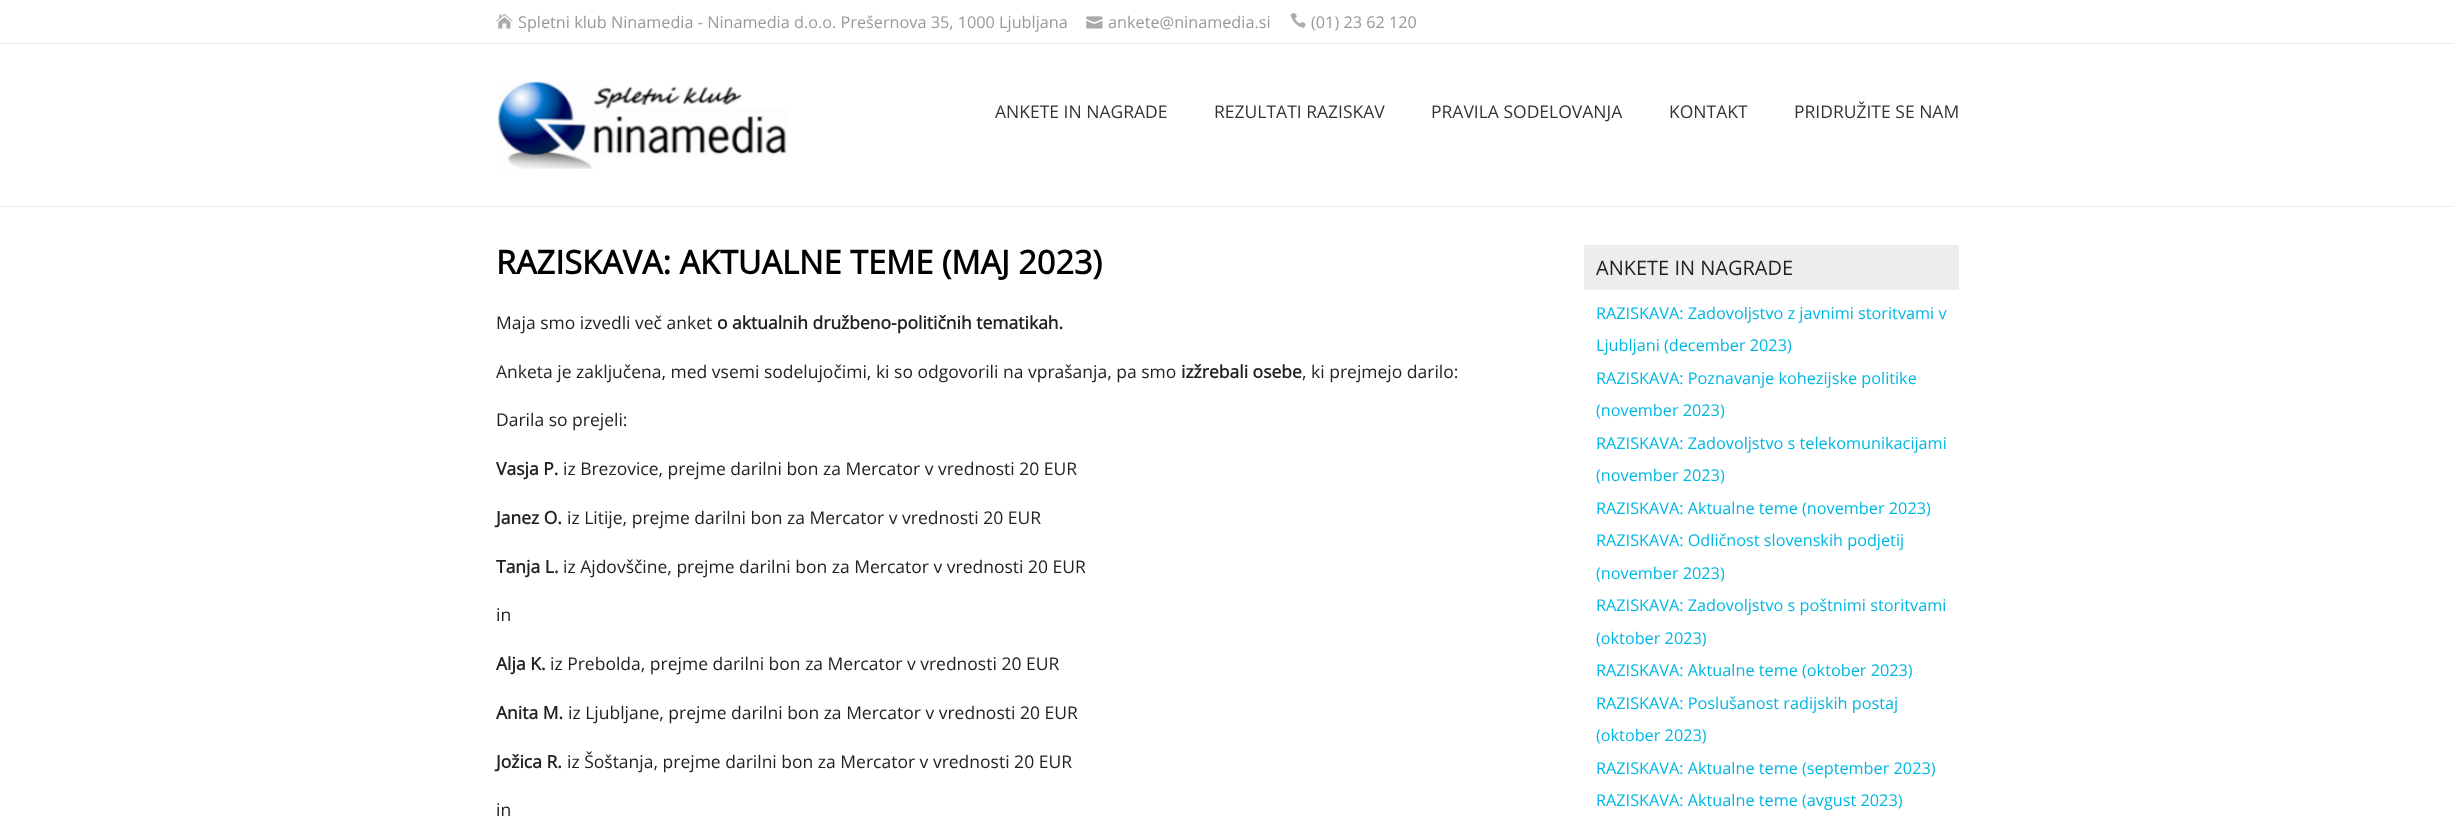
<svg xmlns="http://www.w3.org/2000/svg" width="2454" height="829">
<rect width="100%" height="100%" fill="#fff"/>
<rect y="43" width="2454" height="1" fill="#ebebeb"/>
<image x="496" y="13" width="17" height="16" href="media/1.png"/>
<text x="518" y="28" style="font-family:Open Sans;font-size:16.25px;fill:#999">Spletni klub Ninamedia - Ninamedia d.o.o. Prešernova 35, 1000 Ljubljana</text>
<image x="1086" y="16" width="17" height="13" href="media/2.png"/>
<text x="1108" y="28" style="font-family:Open Sans;font-size:16.25px;fill:#999">ankete@ninamedia.si</text>
<image x="1290" y="13" width="16" height="15" href="media/3.png"/>
<text x="1311" y="28" style="font-family:Open Sans;font-size:16.25px;fill:#999">(01) 23 62 120</text>
<rect y="206" width="2454" height="1" fill="#ebebeb"/>
<image x="497" y="81" width="290" height="88" href="media/4.png"/>
<text x="995" y="118" style="font-family:Open Sans;font-size:17.5px;fill:#333">ANKETE IN NAGRADE</text>
<text x="1214" y="118" style="font-family:Open Sans;font-size:17.5px;fill:#333">REZULTATI RAZISKAV</text>
<text x="1431" y="118" style="font-family:Open Sans;font-size:17.5px;fill:#333">PRAVILA SODELOVANJA</text>
<text x="1669" y="118" style="font-family:Open Sans;font-size:17.5px;fill:#333">KONTAKT</text>
<text x="1794" y="118" style="font-family:Open Sans;font-size:17.5px;fill:#333">PRIDRUŽITE SE NAM</text>
<text x="496" y="274" style="font-family:Open Sans;font-size:32.5px;font-weight:bold;fill:#000">RAZISKAVA: AKTUALNE TEME (MAJ 2023)</text>
<text x="496" y="329" style="font-family:Open Sans;font-size:17.5px;fill:#222">Maja smo izvedli več anket</text>
<text x="717" y="329" style="font-family:Open Sans;font-size:17.5px;font-weight:bold;fill:#222">o aktualnih družbeno-političnih tematikah.</text>
<text x="496" y="378" style="font-family:Open Sans;font-size:17.5px;fill:#222">Anketa je zaključena, med vsemi sodelujočimi, ki so odgovorili na vprašanja, pa smo</text>
<text x="1181" y="378" style="font-family:Open Sans;font-size:17.5px;font-weight:bold;fill:#222">izžrebali osebe</text>
<text x="1302" y="378" style="font-family:Open Sans;font-size:17.5px;fill:#222">, ki prejmejo darilo:</text>
<text x="496" y="426" style="font-family:Open Sans;font-size:17.5px;fill:#222">Darila so prejeli:</text>
<text x="496" y="475" style="font-family:Open Sans;font-size:17.5px;font-weight:bold;fill:#222">Vasja P.</text>
<text x="563" y="475" style="font-family:Open Sans;font-size:17.5px;fill:#222">iz Brezovice, prejme darilni bon za Mercator v vrednosti 20 EUR</text>
<text x="496" y="524" style="font-family:Open Sans;font-size:17.5px;font-weight:bold;fill:#222">Janez O.</text>
<text x="567" y="524" style="font-family:Open Sans;font-size:17.5px;fill:#222">iz Litije, prejme darilni bon za Mercator v vrednosti 20 EUR</text>
<text x="496" y="573" style="font-family:Open Sans;font-size:17.5px;font-weight:bold;fill:#222">Tanja L.</text>
<text x="563" y="573" style="font-family:Open Sans;font-size:17.5px;fill:#222">iz Ajdovščine, prejme darilni bon za Mercator v vrednosti 20 EUR</text>
<text x="496" y="621" style="font-family:Open Sans;font-size:17.5px;fill:#222">in</text>
<text x="496" y="670" style="font-family:Open Sans;font-size:17.5px;font-weight:bold;fill:#222">Alja K.</text>
<text x="550" y="670" style="font-family:Open Sans;font-size:17.5px;fill:#222">iz Prebolda, prejme darilni bon za Mercator v vrednosti 20 EUR</text>
<text x="496" y="719" style="font-family:Open Sans;font-size:17.5px;font-weight:bold;fill:#222">Anita M.</text>
<text x="568" y="719" style="font-family:Open Sans;font-size:17.5px;fill:#222">iz Ljubljane, prejme darilni bon za Mercator v vrednosti 20 EUR</text>
<text x="496" y="768" style="font-family:Open Sans;font-size:17.5px;font-weight:bold;fill:#222">Jožica R.</text>
<text x="567" y="768" style="font-family:Open Sans;font-size:17.5px;fill:#222">iz Šoštanja, prejme darilni bon za Mercator v vrednosti 20 EUR</text>
<text x="496" y="816" style="font-family:Open Sans;font-size:17.5px;fill:#222">in</text>
<rect x="1584" y="245" width="375" height="45" fill="#ededed"/>
<text x="1596" y="275" style="font-family:Open Sans;font-size:20px;fill:#222">ANKETE IN NAGRADE</text>
<text x="1596" y="319" style="font-family:Open Sans;font-size:16.25px;fill:#00b7e2">RAZISKAVA: Zadovoljstvo z javnimi storitvami v</text>
<text x="1596" y="351" style="font-family:Open Sans;font-size:16.25px;fill:#00b7e2">Ljubljani (december 2023)</text>
<text x="1596" y="384" style="font-family:Open Sans;font-size:16.25px;fill:#00b7e2">RAZISKAVA: Poznavanje kohezijske politike</text>
<text x="1596" y="416" style="font-family:Open Sans;font-size:16.25px;fill:#00b7e2">(november 2023)</text>
<text x="1596" y="449" style="font-family:Open Sans;font-size:16.25px;fill:#00b7e2">RAZISKAVA: Zadovoljstvo s telekomunikacijami</text>
<text x="1596" y="481" style="font-family:Open Sans;font-size:16.25px;fill:#00b7e2">(november 2023)</text>
<text x="1596" y="514" style="font-family:Open Sans;font-size:16.25px;fill:#00b7e2">RAZISKAVA: Aktualne teme (november 2023)</text>
<text x="1596" y="546" style="font-family:Open Sans;font-size:16.25px;fill:#00b7e2">RAZISKAVA: Odličnost slovenskih podjetij</text>
<text x="1596" y="579" style="font-family:Open Sans;font-size:16.25px;fill:#00b7e2">(november 2023)</text>
<text x="1596" y="611" style="font-family:Open Sans;font-size:16.25px;fill:#00b7e2">RAZISKAVA: Zadovoljstvo s poštnimi storitvami</text>
<text x="1596" y="644" style="font-family:Open Sans;font-size:16.25px;fill:#00b7e2">(oktober 2023)</text>
<text x="1596" y="676" style="font-family:Open Sans;font-size:16.25px;fill:#00b7e2">RAZISKAVA: Aktualne teme (oktober 2023)</text>
<text x="1596" y="709" style="font-family:Open Sans;font-size:16.25px;fill:#00b7e2">RAZISKAVA: Poslušanost radijskih postaj</text>
<text x="1596" y="741" style="font-family:Open Sans;font-size:16.25px;fill:#00b7e2">(oktober 2023)</text>
<text x="1596" y="774" style="font-family:Open Sans;font-size:16.25px;fill:#00b7e2">RAZISKAVA: Aktualne teme (september 2023)</text>
<text x="1596" y="806" style="font-family:Open Sans;font-size:16.25px;fill:#00b7e2">RAZISKAVA: Aktualne teme (avgust 2023)</text>
</svg>
